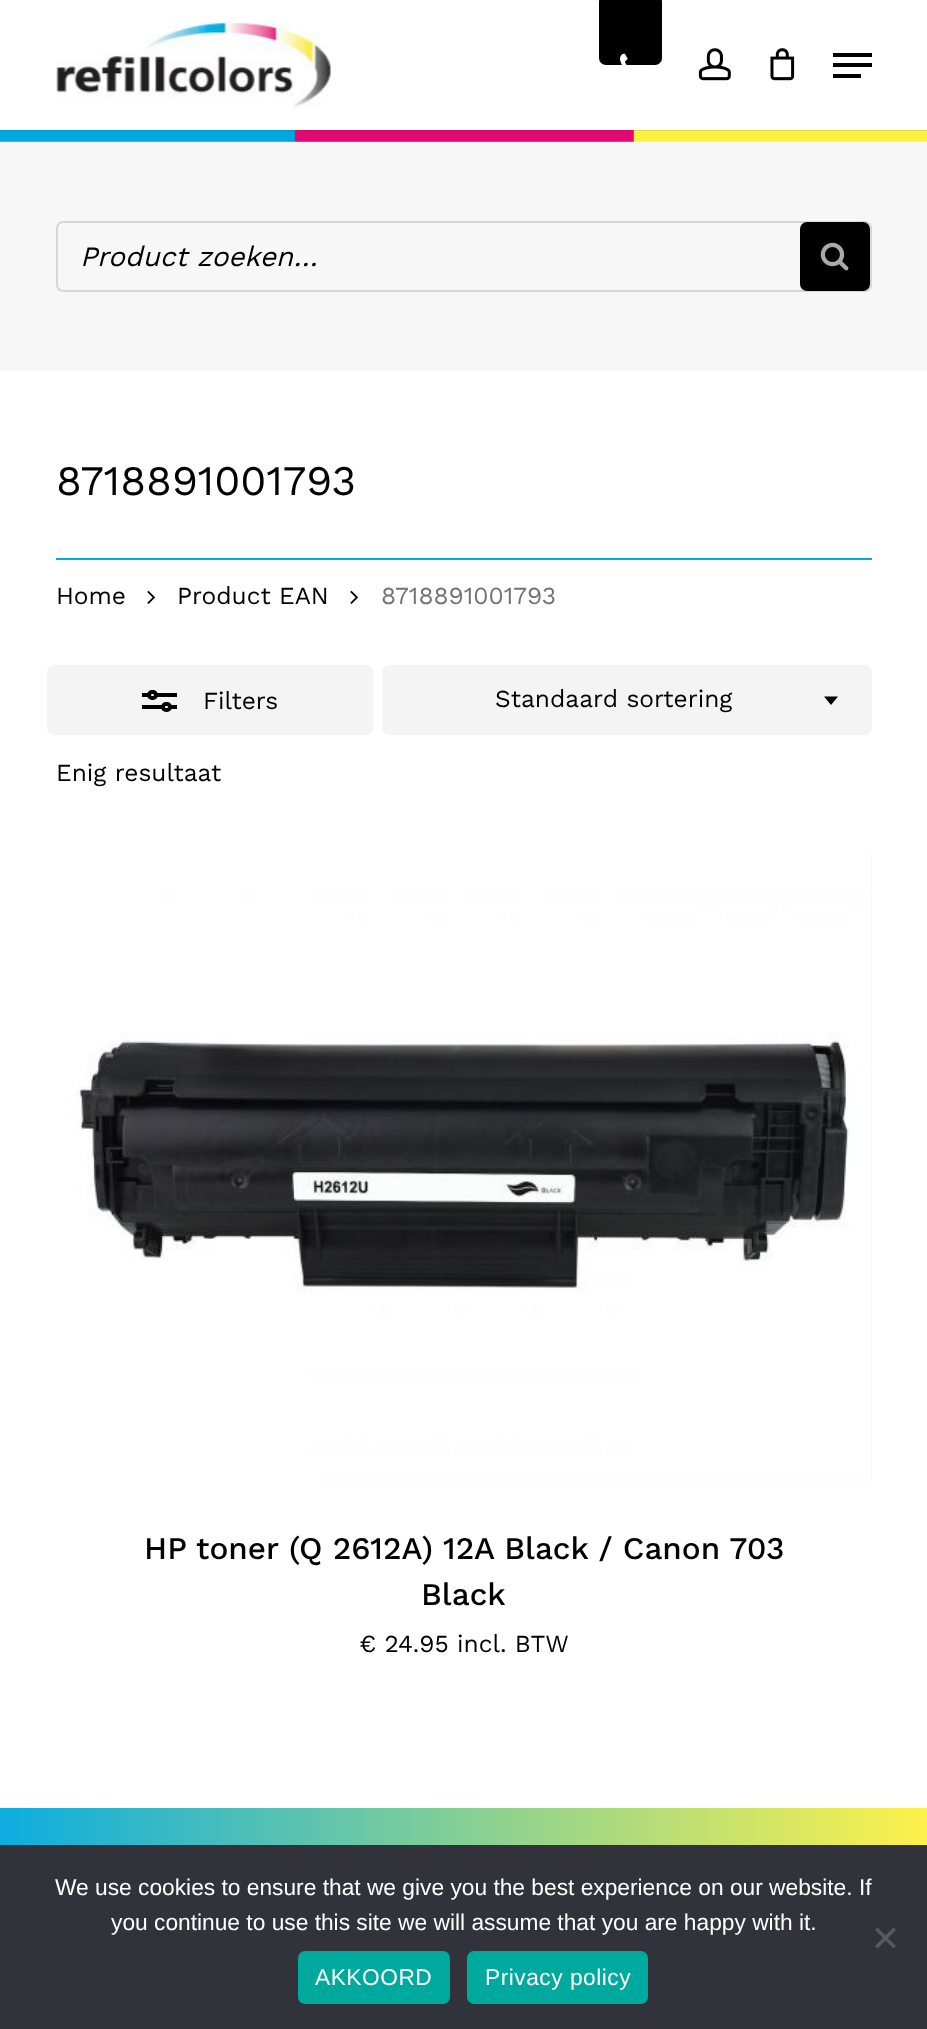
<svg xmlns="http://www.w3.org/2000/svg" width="927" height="2029">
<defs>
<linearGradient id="g1" gradientUnits="userSpaceOnUse" x1="0" y1="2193" x2="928" y2="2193"><stop offset="0" stop-color="#0dade0"/><stop offset="1" stop-color="#fdf14b"/></linearGradient>
</defs>
<rect width="100%" height="100%" fill="#fff"/>
<image x="0" y="130" width="927" height="12" href="media/5.png"/>
<path d="M0 130v1h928v-129v128z" fill="#00000014"/>
<image x="56" y="21" width="275" height="87" href="media/1.png"/>
<rect x="599" y="-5" width="63" height="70" rx="7" fill="#000"/>
<image x="619" y="53" width="9" height="12" href="media/2.png"/>
<image x="698" y="48" width="33" height="33" href="media/3.png"/>
<image x="770" y="48" width="25" height="33" href="media/4.png"/>
<rect x="833" y="53" width="39" height="4" fill="#000"/>
<rect x="833" y="74" width="28" height="4" fill="#000"/>
<rect x="833" y="63" width="39" height="4" fill="#000"/>
<rect y="142" width="927" height="229" fill="#f7f7f7"/>
<rect x="57" y="222" width="814" height="69" rx="6" fill="none" stroke="#d6d6d6" stroke-width="2"/>
<text x="80" y="266" style="font-family:Work Sans;font-size:28px;font-style:italic;fill:#000">Product zoeken…</text>
<rect x="800" y="222" width="70" height="69" rx="7" fill="#000"/>
<image x="820" y="242" width="29" height="29" href="media/6.png"/>
<rect x="56" y="558" width="816" height="2" fill="#00a9de"/>
<text x="56" y="495" style="font-family:Work Sans;font-size:42px;fill:#000">8718891001793</text>
<text x="56" y="604" style="font-family:Work Sans;font-size:24.5px;fill:#000">Home</text>
<image x="147" y="590" width="8" height="14" href="media/7.png"/>
<text x="177" y="604" style="font-family:Work Sans;font-size:24.5px;fill:#000">Product EAN</text>
<image x="350" y="590" width="8" height="14" href="media/7.png"/>
<text x="381" y="604" style="font-family:Work Sans;font-size:24.5px;fill:#737373">8718891001793</text>
<rect x="382" y="665" width="490" height="70" rx="7" fill="#f4f4f4"/>
<text x="495" y="707" style="font-family:Work Sans;font-size:24.5px;fill:#000">Standaard sortering</text>
<path d="M824 696.5h14l-7 8.5z" fill="#000"/>
<text x="56" y="781" style="font-family:Work Sans;font-size:24.5px;fill:#000">Enig resultaat</text>
<rect x="47" y="665" width="326" height="70" rx="7" fill="#f4f4f4"/>
<rect x="142" y="693" width="35" height="4" fill="#000"/>
<rect x="142" y="705" width="35" height="4" fill="#000"/>
<rect x="149" y="692" width="7" height="6" rx="3" fill="#fff" stroke="#000" stroke-width="4"/>
<rect x="163" y="704" width="7" height="6" rx="3" fill="#fff" stroke="#000" stroke-width="4"/>
<text x="203" y="709" style="font-family:Work Sans;font-size:24.5px;fill:#000">Filters</text>
<path d="M67 847h794c6 0 11 5 11 11v624h-816v-624c0-6 5-11 11-11z" fill="#f8f8f8"/>
<image x="56" y="847" width="815" height="635" href="media/8.png"/>
<text x="144" y="1559" style="font-family:Work Sans;font-size:31.5px;font-weight:500;fill:#000">HP toner (Q 2612A) 12A Black / Canon 703</text>
<text x="421" y="1605" style="font-family:Work Sans;font-size:31.5px;font-weight:500;fill:#000">Black</text>
<text x="359" y="1652" style="font-family:Work Sans;font-size:24.5px;fill:#000">€ 24.95 incl. BTW</text>
<rect y="1808" width="927" height="37" fill="url(#g1)"/>
<rect y="1845" width="927" height="184" fill="#32323a"/>
<text x="55" y="1895" style="font-family:Liberation Sans;font-size:22.75px;fill:#fff">We use cookies to ensure that we give you the best experience on our website. If</text>
<text x="111" y="1930" style="font-family:Liberation Sans;font-size:22.75px;fill:#fff">you continue to use this site we will assume that you are happy with it.</text>
<path d="M893.5 1927.5l2.5 2.5l-18.5 18.5l-2.5-2.5z" fill="#59595d"/>
<path d="M875 1930l2.5-2.5l18.5 18.5l-2.5 2.5z" fill="#59595d"/>
<rect x="298" y="1951" width="152" height="53" rx="7" fill="#00a99d"/>
<text x="315" y="1985" style="font-family:Liberation Sans;font-size:22.75px;letter-spacing:0.5px;fill:#fff">AKKOORD</text>
<rect x="467" y="1951" width="181" height="53" rx="7" fill="#00a99d"/>
<text x="485" y="1985" style="font-family:Liberation Sans;font-size:22.75px;letter-spacing:0.5px;fill:#fff">Privacy policy</text>
</svg>
